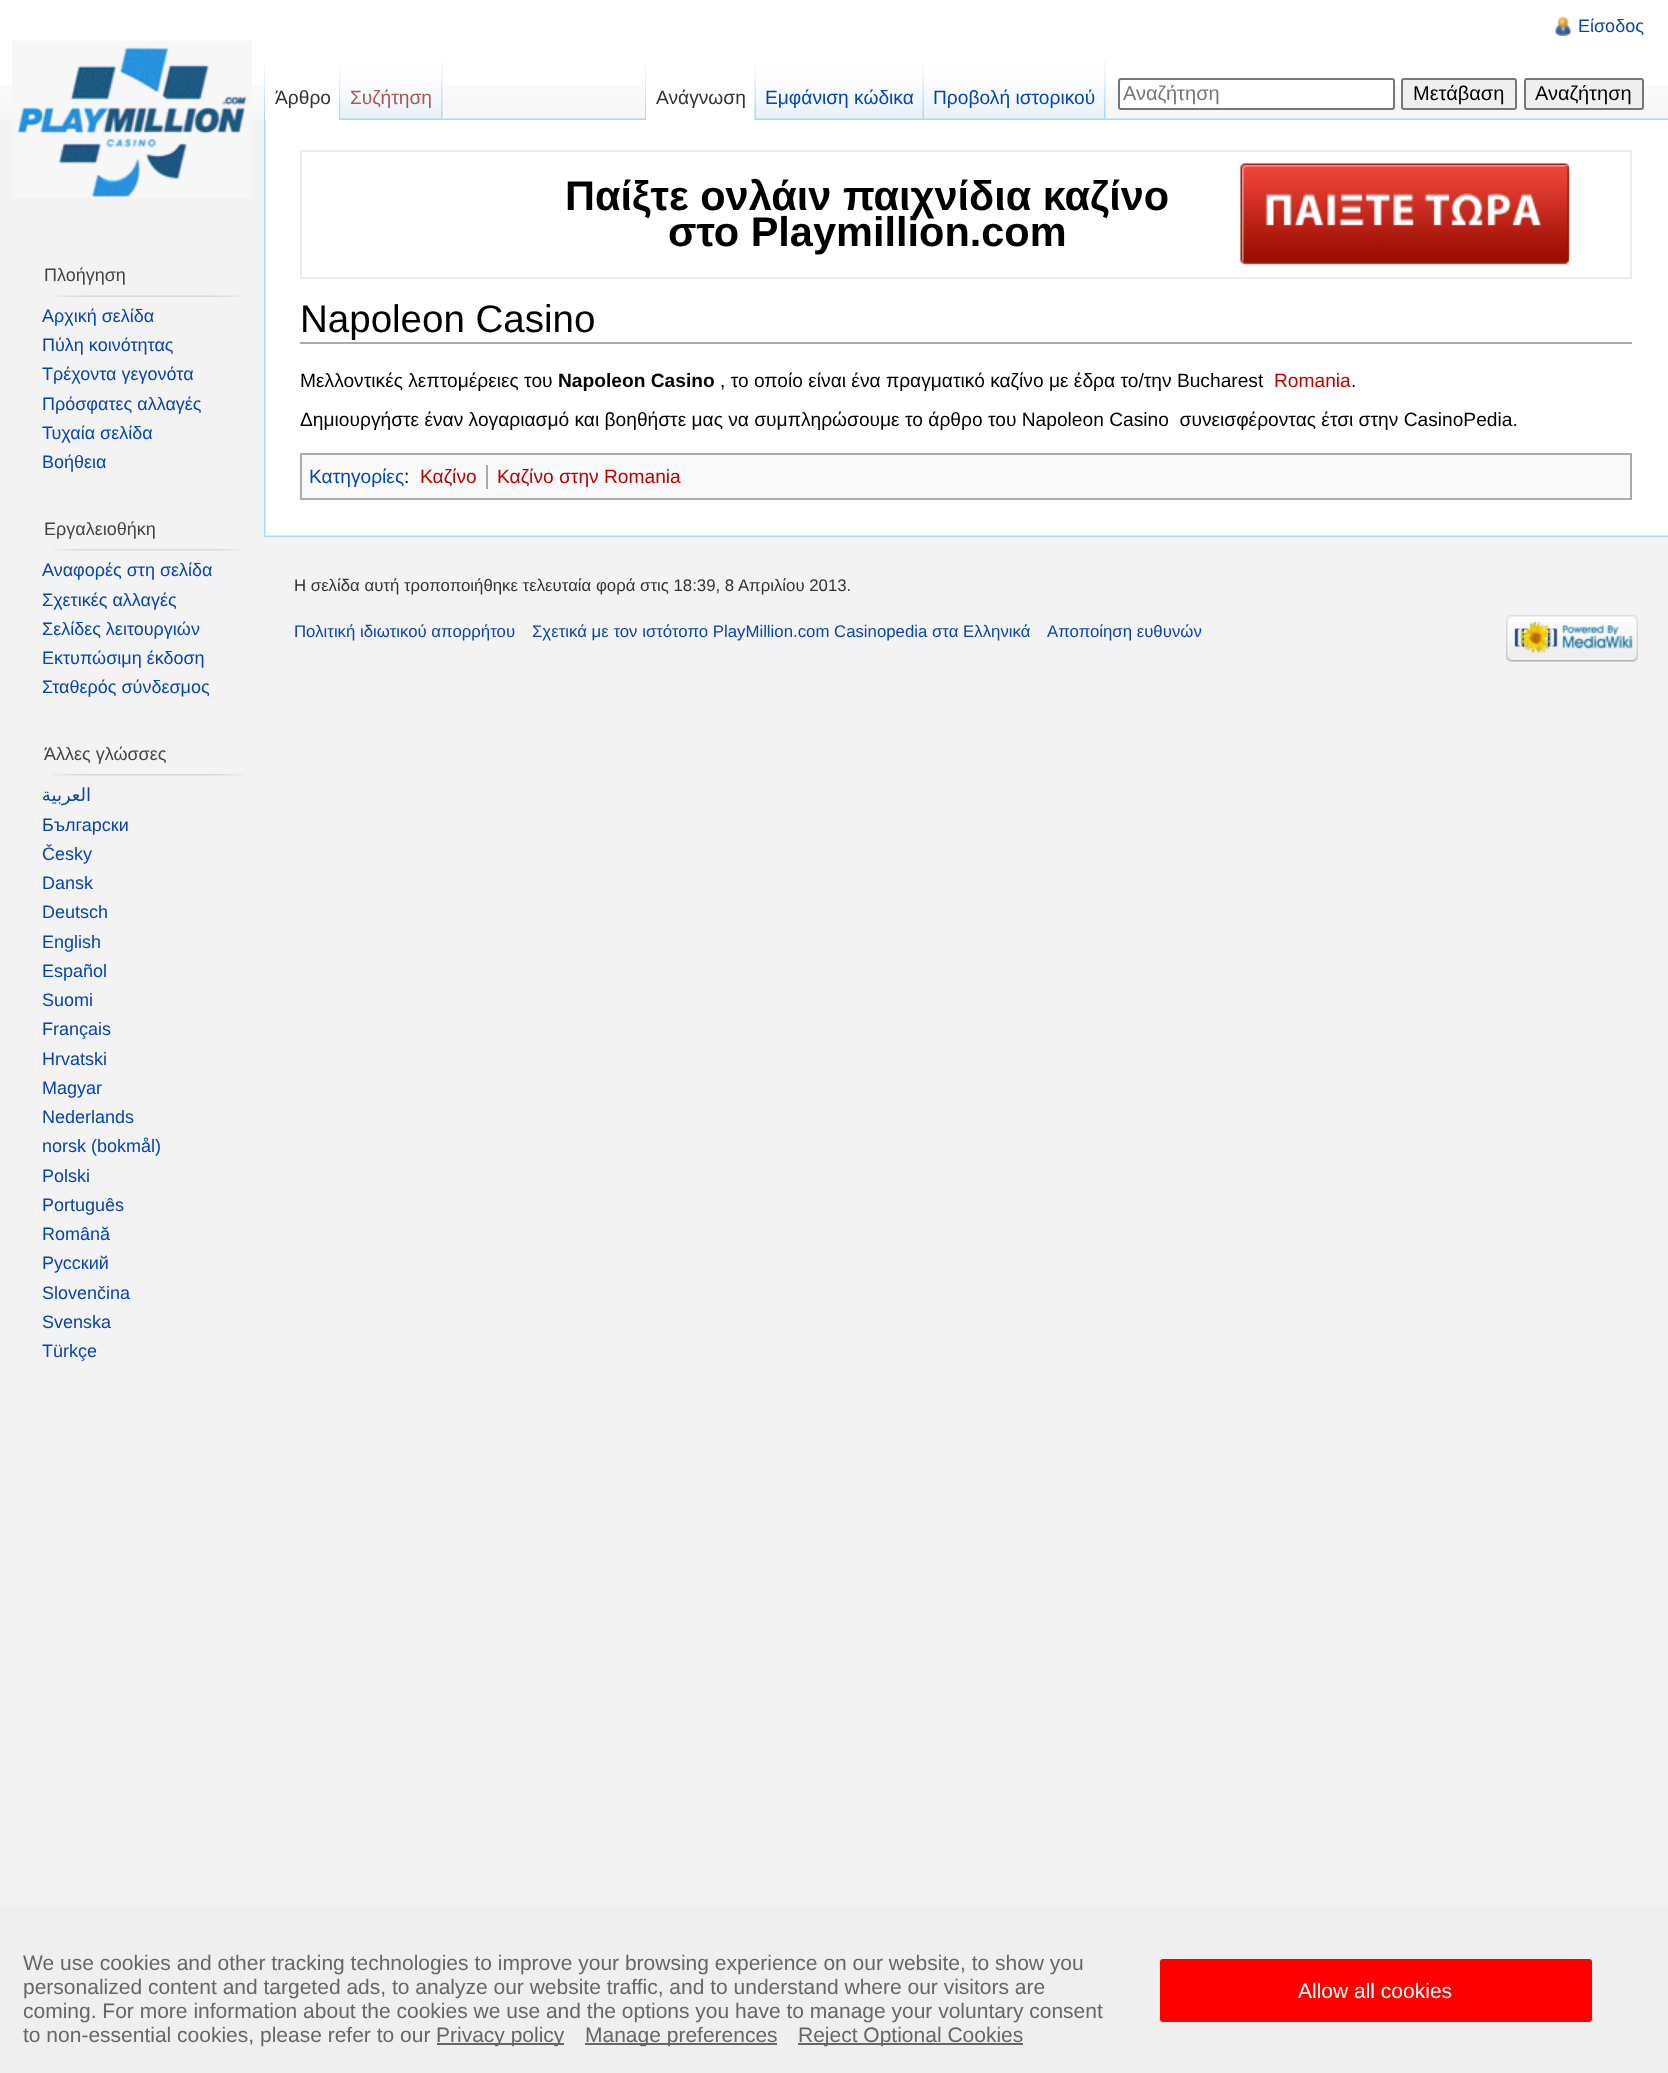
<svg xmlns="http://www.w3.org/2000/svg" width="1668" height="2073">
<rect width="100%" height="100%" fill="#f3f3f3"/>
<rect width="1668" height="85" fill="#fff"/>
<image x="0" y="85" width="1668" height="35" href="media/1.png"/>
<image x="1555" y="16" width="16" height="20" href="media/2.png"/>
<text x="1578" y="32" style="font-family:Liberation Sans;font-size:18px;fill:#0645ad">Είσοδος</text>
<image x="264" y="118" width="1404" height="2" href="media/11.png"/>
<image x="264" y="60" width="1" height="59" href="media/3.png"/>
<rect x="265" y="85" width="76" height="35" fill="#fff"/>
<image x="339" y="61" width="2" height="59" href="media/4.png"/>
<text x="275" y="104" style="font-family:Liberation Sans;font-size:19.2px;fill:#333">Άρθρο</text>
<rect x="442" y="60" width="1" height="60" fill="#f3f3f3"/>
<image x="340" y="60" width="103" height="60" href="media/5.png"/>
<image x="441" y="61" width="2" height="59" href="media/6.png"/>
<text x="350" y="104" style="font-family:Liberation Sans;font-size:19.2px;fill:#a55858">Συζήτηση</text>
<image x="645" y="60" width="1" height="59" href="media/3.png"/>
<rect x="646" y="85" width="110" height="35" fill="#fff"/>
<image x="754" y="61" width="2" height="59" href="media/7.png"/>
<text x="656" y="104" style="font-family:Liberation Sans;font-size:19.2px;fill:#333">Ανάγνωση</text>
<image x="756" y="60" width="168" height="60" href="media/8.png"/>
<image x="922" y="61" width="2" height="58" href="media/9.png"/>
<text x="765" y="104" style="font-family:Liberation Sans;font-size:19.2px;fill:#0645ad">Εμφάνιση κώδικα</text>
<rect x="1105" y="60" width="1" height="60" fill="#f3f3f3"/>
<image x="924" y="60" width="182" height="60" href="media/10.png"/>
<image x="1104" y="61" width="2" height="59" href="media/6.png"/>
<text x="933" y="104" style="font-family:Liberation Sans;font-size:19.2px;fill:#0645ad">Προβολή ιστορικού</text>
<rect x="1119" y="79" width="275" height="30" rx="2" fill="#fff" stroke="#767676" stroke-width="2"/>
<text x="1123" y="100" style="font-family:Liberation Sans;font-size:20px;fill:#757575">Αναζήτηση</text>
<rect x="1402" y="79" width="114" height="30" rx="2" fill="#efefef" stroke="#767676" stroke-width="2"/>
<text x="1413" y="100" style="font-family:Liberation Sans;font-size:20px;fill:#000">Μετάβαση</text>
<rect x="1525" y="79" width="118" height="30" rx="2" fill="#efefef" stroke="#767676" stroke-width="2"/>
<text x="1535" y="100" style="font-family:Liberation Sans;font-size:20px;fill:#000">Αναζήτηση</text>
<image x="12" y="40" width="240" height="158" href="media/12.png"/>
<text x="44" y="281" style="font-family:Liberation Sans;font-size:18px;fill:#444">Πλοήγηση</text>
<image x="52" y="295" width="192" height="2" href="media/13.png"/>
<text x="42" y="322" style="font-family:Liberation Sans;font-size:18px;fill:#0645ad">Αρχική σελίδα</text>
<text x="42" y="351" style="font-family:Liberation Sans;font-size:18px;fill:#0645ad">Πύλη κοινότητας</text>
<text x="42" y="380" style="font-family:Liberation Sans;font-size:18px;fill:#0645ad">Τρέχοντα γεγονότα</text>
<text x="42" y="410" style="font-family:Liberation Sans;font-size:18px;fill:#0645ad">Πρόσφατες αλλαγές</text>
<text x="42" y="439" style="font-family:Liberation Sans;font-size:18px;fill:#0645ad">Τυχαία σελίδα</text>
<text x="42" y="468" style="font-family:Liberation Sans;font-size:18px;fill:#0645ad">Βοήθεια</text>
<text x="44" y="535" style="font-family:Liberation Sans;font-size:18px;fill:#444">Εργαλειοθήκη</text>
<image x="52" y="549" width="192" height="2" href="media/14.png"/>
<text x="42" y="576" style="font-family:Liberation Sans;font-size:18px;fill:#0645ad">Αναφορές στη σελίδα</text>
<text x="42" y="606" style="font-family:Liberation Sans;font-size:18px;fill:#0645ad">Σχετικές αλλαγές</text>
<text x="42" y="635" style="font-family:Liberation Sans;font-size:18px;fill:#0645ad">Σελίδες λειτουργιών</text>
<text x="42" y="664" style="font-family:Liberation Sans;font-size:18px;fill:#0645ad">Εκτυπώσιμη έκδοση</text>
<text x="42" y="693" style="font-family:Liberation Sans;font-size:18px;fill:#0645ad">Σταθερός σύνδεσμος</text>
<text x="44" y="760" style="font-family:Liberation Sans;font-size:18px;fill:#444">Άλλες γλώσσες</text>
<image x="52" y="774" width="192" height="2" href="media/14.png"/>
<text x="91" y="801" style="font-family:DejaVu Sans;font-size:18px;direction:rtl;fill:#0645ad">العربية</text>
<text x="42" y="831" style="font-family:Liberation Sans;font-size:18px;fill:#0645ad">Български</text>
<text x="42" y="860" style="font-family:Liberation Sans;font-size:18px;fill:#0645ad">Česky</text>
<text x="42" y="889" style="font-family:Liberation Sans;font-size:18px;fill:#0645ad">Dansk</text>
<text x="42" y="918" style="font-family:Liberation Sans;font-size:18px;fill:#0645ad">Deutsch</text>
<text x="42" y="948" style="font-family:Liberation Sans;font-size:18px;fill:#0645ad">English</text>
<text x="42" y="977" style="font-family:Liberation Sans;font-size:18px;fill:#0645ad">Español</text>
<text x="42" y="1006" style="font-family:Liberation Sans;font-size:18px;fill:#0645ad">Suomi</text>
<text x="42" y="1035" style="font-family:Liberation Sans;font-size:18px;fill:#0645ad">Français</text>
<text x="42" y="1065" style="font-family:Liberation Sans;font-size:18px;fill:#0645ad">Hrvatski</text>
<text x="42" y="1094" style="font-family:Liberation Sans;font-size:18px;fill:#0645ad">Magyar</text>
<text x="42" y="1123" style="font-family:Liberation Sans;font-size:18px;fill:#0645ad">Nederlands</text>
<text x="42" y="1152" style="font-family:Liberation Sans;font-size:18px;fill:#0645ad">norsk (bokmål)</text>
<text x="42" y="1182" style="font-family:Liberation Sans;font-size:18px;fill:#0645ad">Polski</text>
<text x="42" y="1211" style="font-family:Liberation Sans;font-size:18px;fill:#0645ad">Português</text>
<text x="42" y="1240" style="font-family:Liberation Sans;font-size:18px;fill:#0645ad">Română</text>
<text x="42" y="1269" style="font-family:Liberation Sans;font-size:18px;fill:#0645ad">Русский</text>
<text x="42" y="1299" style="font-family:Liberation Sans;font-size:18px;fill:#0645ad">Slovenčina</text>
<text x="42" y="1328" style="font-family:Liberation Sans;font-size:18px;fill:#0645ad">Svenska</text>
<text x="42" y="1357" style="font-family:Liberation Sans;font-size:18px;fill:#0645ad">Türkçe</text>
<rect x="264" y="120" width="1404" height="416" fill="#fff"/>
<image x="264" y="120" width="2" height="416" href="media/15.png"/>
<rect x="301" y="151" width="1330" height="127" fill="none" stroke="#ededed" stroke-width="2"/>
<text x="565" y="210" style="font-family:Liberation Sans;font-size:41.5px;font-weight:bold;fill:#000">Παίξτε ονλάιν παιχνίδια καζίνο</text>
<text x="668" y="246" style="font-family:Liberation Sans;font-size:41.5px;font-weight:bold;fill:#000">στο Playmillion.com</text>
<image x="1240" y="163" width="330" height="102" href="media/16.png"/>
<rect x="300" y="342" width="1332" height="2" fill="#aaa"/>
<text x="300" y="332" style="font-family:Liberation Sans;font-size:38.5px;fill:#000">Napoleon Casino</text>
<text x="300" y="387" style="font-family:Liberation Sans;font-size:19.2px;fill:#000">Μελλοντικές λεπτομέρειες του</text>
<text x="558" y="387" style="font-family:Liberation Sans;font-size:19.2px;font-weight:bold;fill:#000">Napoleon Casino</text>
<text x="720" y="387" style="font-family:Liberation Sans;font-size:19.2px;fill:#000">, το οποίο είναι ένα πραγματικό καζίνο με έδρα το/την Bucharest</text>
<text x="1274" y="387" style="font-family:Liberation Sans;font-size:19.2px;fill:#ba0000">Romania</text>
<text x="1351" y="387" style="font-family:Liberation Sans;font-size:19.2px;fill:#000">.</text>
<text x="300" y="426" style="font-family:Liberation Sans;font-size:19.2px;fill:#000" xml:space="preserve">Δημιουργήστε έναν λογαριασμό και βοηθήστε μας να συμπληρώσουμε το άρθρο του Napoleon Casino  συνεισφέροντας έτσι στην CasinoPedia.</text>
<rect x="301" y="454" width="1330" height="45" fill="#f9f9f9" stroke="#aaa" stroke-width="2"/>
<text x="309" y="483" style="font-family:Liberation Sans;font-size:19.2px;fill:#0645ad">Κατηγορίες</text>
<text x="404" y="483" style="font-family:Liberation Sans;font-size:19.2px;fill:#000">:</text>
<text x="420" y="483" style="font-family:Liberation Sans;font-size:19.2px;fill:#ba0000">Καζίνο</text>
<rect x="486" y="465" width="2" height="24" fill="#aaa"/>
<text x="497" y="483" style="font-family:Liberation Sans;font-size:19.2px;fill:#ba0000">Καζίνο στην Romania</text>
<image x="264" y="535" width="1404" height="2" href="media/17.png"/>
<text x="294" y="591" style="font-family:Liberation Sans;font-size:16.8px;fill:#333">Η σελίδα αυτή τροποποιήθηκε τελευταία φορά στις 18:39, 8 Απριλίου 2013.</text>
<text x="294" y="637" style="font-family:Liberation Sans;font-size:16.8px;fill:#0645ad">Πολιτική ιδιωτικού απορρήτου</text>
<text x="532" y="637" style="font-family:Liberation Sans;font-size:16.8px;fill:#0645ad">Σχετικά με τον ιστότοπο PlayMillion.com Casinopedia στα Ελληνικά</text>
<text x="1047" y="637" style="font-family:Liberation Sans;font-size:16.8px;fill:#0645ad">Αποποίηση ευθυνών</text>
<image x="1506" y="615" width="132" height="47" href="media/18.png"/>
<rect y="1905" width="1668" height="168" fill="#efefef"/>
<text x="23" y="1970" style="font-family:Liberation Sans;font-size:21px;fill:#666">We use cookies and other tracking technologies to improve your browsing experience on our website, to show you</text>
<text x="23" y="1994" style="font-family:Liberation Sans;font-size:21px;fill:#666">personalized content and targeted ads, to analyze our website traffic, and to understand where our visitors are</text>
<text x="23" y="2018" style="font-family:Liberation Sans;font-size:21px;fill:#666">coming. For more information about the cookies we use and the options you have to manage your voluntary consent</text>
<text x="23" y="2042" style="font-family:Liberation Sans;font-size:21px;fill:#666">to non-essential cookies, please refer to our</text>
<rect x="437" y="2043" width="127" height="2" fill="#666"/>
<text x="436" y="2042" style="font-family:Liberation Sans;font-size:21px;fill:#666">Privacy policy</text>
<rect x="585" y="2043" width="192" height="2" fill="#666"/>
<text x="585" y="2042" style="font-family:Liberation Sans;font-size:21px;fill:#666">Manage preferences</text>
<rect x="798" y="2043" width="225" height="2" fill="#666"/>
<text x="798" y="2042" style="font-family:Liberation Sans;font-size:21px;fill:#666">Reject Optional Cookies</text>
<rect x="1160" y="1959" width="432" height="63" rx="3" fill="#f00"/>
<text x="1298" y="1998" style="font-family:Liberation Sans;font-size:21px;fill:#fff">Allow all cookies</text>
</svg>
